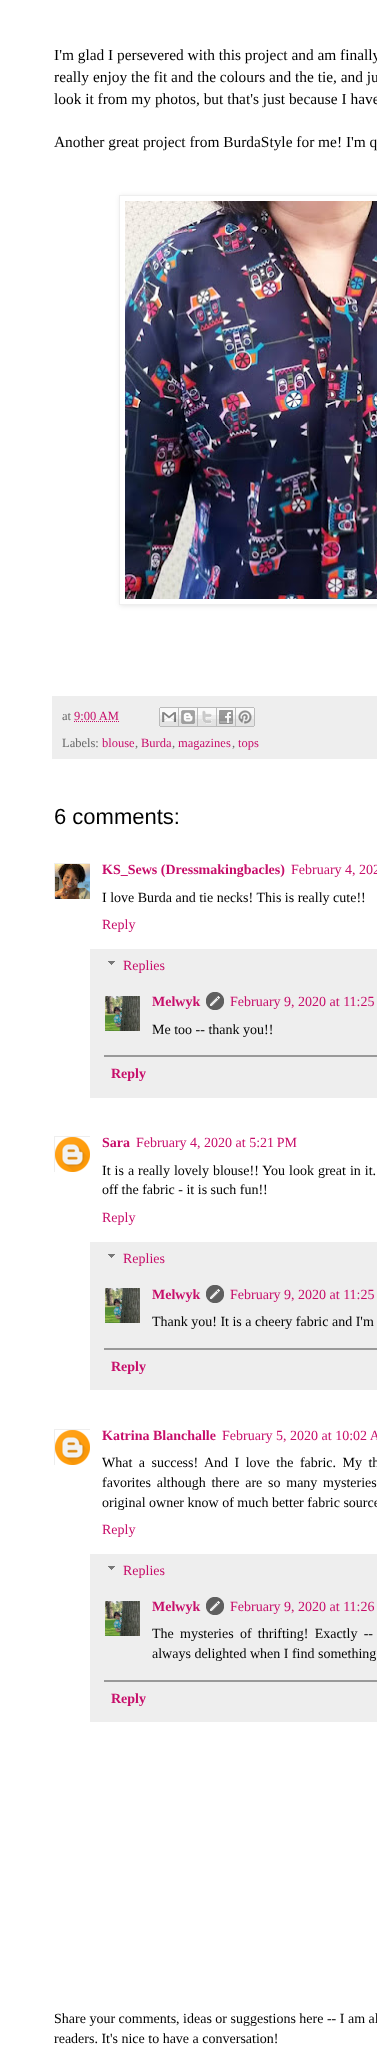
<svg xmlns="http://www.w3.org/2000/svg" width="377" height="2065">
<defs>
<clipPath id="clip1"><path d="M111 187h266v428h-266zm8 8h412v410h-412z" clip-rule="evenodd"/></clipPath>
<clipPath id="clip2"><rect x="54" y="863" width="36" height="36"/></clipPath>
<clipPath id="clip3"><rect x="54" y="1136" width="36" height="36"/></clipPath>
<clipPath id="clip4"><rect x="54" y="1429" width="36" height="36"/></clipPath>
</defs>
<rect width="100%" height="100%" fill="#fff"/>
<text x="54" y="60" style="font-family:Liberation Serif;font-size:15.4px;fill:#000">I'm glad I persevered with this project and am finally</text>
<text x="54" y="82" style="font-family:Liberation Serif;font-size:15.4px;fill:#000">really enjoy the fit and the colours and the tie, and ju</text>
<text x="54" y="104" style="font-family:Liberation Serif;font-size:15.4px;fill:#000">look it from my photos, but that's just because I have</text>
<text x="54" y="147" style="font-family:Liberation Serif;font-size:15.4px;fill:#000">Another great project from BurdaStyle for me! I'm q</text>
<g clip-path="url(#clip1)">
<rect x="120" y="196" width="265" height="410" fill="#0000001a" filter="blur(2.5px)"/>
</g>
<rect x="119.5" y="195.5" width="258" height="409" fill="none" stroke="#eee"/>
<image x="125" y="201" width="252" height="398" href="media/1.png"/>
<rect x="52" y="696" width="325" height="63" fill="#eee"/>
<text x="62" y="720" style="font-family:Liberation Serif;font-size:12.5px;fill:#666">at</text>
<text x="74" y="720" style="font-family:Liberation Serif;font-size:12.5px;fill:#c70e6a">9:00 AM</text>
<path d="M74 721.5h45.5" fill="none" stroke="#c70e6a" stroke-dasharray="1 1"/>
<image x="159" y="707" width="20" height="20" href="media/2.png"/>
<image x="179" y="707" width="19" height="20" href="media/3.png"/>
<image x="198" y="707" width="19" height="20" href="media/4.png"/>
<image x="217" y="707" width="19" height="20" href="media/5.png"/>
<image x="236" y="707" width="19" height="20" href="media/6.png"/>
<text x="62" y="747" style="font-family:Liberation Serif;font-size:12.5px;fill:#666">Labels:</text>
<text x="102" y="747" style="font-family:Liberation Serif;font-size:12.5px;fill:#c70e6a">blouse</text>
<text x="135" y="747" style="font-family:Liberation Serif;font-size:12.5px;fill:#666">,</text>
<text x="141" y="747" style="font-family:Liberation Serif;font-size:12.5px;fill:#c70e6a">Burda</text>
<text x="172" y="747" style="font-family:Liberation Serif;font-size:12.5px;fill:#666">,</text>
<text x="178" y="747" style="font-family:Liberation Serif;font-size:12.5px;fill:#c70e6a">magazines</text>
<text x="232" y="747" style="font-family:Liberation Serif;font-size:12.5px;fill:#666">,</text>
<text x="238" y="747" style="font-family:Liberation Serif;font-size:12.5px;fill:#c70e6a">tops</text>
<text x="54" y="824" style="font-family:Liberation Sans;font-size:22px;fill:#000">6 comments:</text>
<g clip-path="url(#clip2)">
<rect x="54.5" y="863.5" width="37" height="37" fill="none" stroke="#eee"/>
</g>
<image x="55" y="864" width="35" height="35" href="media/7.png"/>
<text x="102" y="874" style="font-family:Liberation Serif;font-size:14px;font-weight:bold;fill:#c70e6a">KS_Sews (Dressmakingbacles)</text>
<text x="291" y="874" style="font-family:Liberation Serif;font-size:14px;fill:#c70e6a">February 4, 202</text>
<text x="102" y="902" style="font-family:Liberation Serif;font-size:14px;fill:#000">I love Burda and tie necks! This is really cute!!</text>
<text x="102" y="929" style="font-family:Liberation Serif;font-size:14px;fill:#c70e6a">Reply</text>
<rect x="90" y="949" width="287" height="149" fill="#eee"/>
<image x="108" y="961" width="7" height="4" href="media/8.png"/>
<text x="123" y="970" style="font-family:Liberation Serif;font-size:14px;fill:#c70e6a">Replies</text>
<image x="105" y="996" width="35" height="35" href="media/9.png"/>
<text x="152" y="1006" style="font-family:Liberation Serif;font-size:14px;font-weight:bold;fill:#c70e6a">Melwyk</text>
<image x="206" y="992" width="18" height="18" href="media/10.png"/>
<text x="230" y="1006" style="font-family:Liberation Serif;font-size:14px;fill:#c70e6a">February 9, 2020 at 11:25</text>
<text x="152" y="1034" style="font-family:Liberation Serif;font-size:14px;fill:#000">Me too -- thank you!!</text>
<rect x="104" y="1055" width="273" height="2" fill="#999"/>
<text x="111" y="1078" style="font-family:Liberation Serif;font-size:14px;font-weight:bold;fill:#c70e6a">Reply</text>
<g clip-path="url(#clip3)">
<rect x="54.5" y="1136.5" width="36" height="36" fill="none" stroke="#eee"/>
</g>
<image x="55" y="1137" width="35" height="35" href="media/11.png"/>
<text x="102" y="1147" style="font-family:Liberation Serif;font-size:14px;font-weight:bold;fill:#c70e6a">Sara</text>
<text x="136" y="1147" style="font-family:Liberation Serif;font-size:14px;fill:#c70e6a">February 4, 2020 at 5:21 PM</text>
<text x="102" y="1175" word-spacing="0.5" style="font-family:Liberation Serif;font-size:14px;fill:#000">It is a really lovely blouse!! You look great in it.</text>
<text x="102" y="1194" style="font-family:Liberation Serif;font-size:14px;fill:#000">off the fabric - it is such fun!!</text>
<text x="102" y="1222" style="font-family:Liberation Serif;font-size:14px;fill:#c70e6a">Reply</text>
<rect x="90" y="1242" width="287" height="148" fill="#eee"/>
<image x="108" y="1254" width="7" height="4" href="media/8.png"/>
<text x="123" y="1263" style="font-family:Liberation Serif;font-size:14px;fill:#c70e6a">Replies</text>
<image x="105" y="1288" width="35" height="35" href="media/9.png"/>
<text x="152" y="1299" style="font-family:Liberation Serif;font-size:14px;font-weight:bold;fill:#c70e6a">Melwyk</text>
<image x="206" y="1285" width="18" height="18" href="media/10.png"/>
<text x="230" y="1299" style="font-family:Liberation Serif;font-size:14px;fill:#c70e6a">February 9, 2020 at 11:25</text>
<text x="152" y="1326" style="font-family:Liberation Serif;font-size:14px;fill:#000">Thank you! It is a cheery fabric and I'm</text>
<rect x="104" y="1348" width="273" height="2" fill="#999"/>
<text x="111" y="1371" style="font-family:Liberation Serif;font-size:14px;font-weight:bold;fill:#c70e6a">Reply</text>
<g clip-path="url(#clip4)">
<rect x="54.5" y="1429.5" width="36" height="36" fill="none" stroke="#eee"/>
</g>
<image x="55" y="1430" width="35" height="35" href="media/11.png"/>
<text x="102" y="1440" style="font-family:Liberation Serif;font-size:14px;font-weight:bold;fill:#c70e6a">Katrina Blanchalle</text>
<text x="222" y="1440" style="font-family:Liberation Serif;font-size:14px;fill:#c70e6a">February 5, 2020 at 10:02 A</text>
<text x="102" y="1467" word-spacing="3" style="font-family:Liberation Serif;font-size:14px;fill:#000">What a success! And I love the fabric. My th</text>
<text x="102" y="1487" word-spacing="2.25" style="font-family:Liberation Serif;font-size:14px;fill:#000">favorites although there are so many mysteries</text>
<text x="102" y="1507" style="font-family:Liberation Serif;font-size:14px;fill:#000">original owner know of much better fabric source</text>
<text x="102" y="1534" style="font-family:Liberation Serif;font-size:14px;fill:#c70e6a">Reply</text>
<rect x="90" y="1554" width="287" height="168" fill="#eee"/>
<image x="108" y="1566" width="7" height="4" href="media/8.png"/>
<text x="123" y="1575" style="font-family:Liberation Serif;font-size:14px;fill:#c70e6a">Replies</text>
<image x="105" y="1601" width="35" height="35" href="media/9.png"/>
<text x="152" y="1611" style="font-family:Liberation Serif;font-size:14px;font-weight:bold;fill:#c70e6a">Melwyk</text>
<image x="206" y="1597" width="18" height="18" href="media/10.png"/>
<text x="230" y="1611" style="font-family:Liberation Serif;font-size:14px;fill:#c70e6a">February 9, 2020 at 11:26</text>
<text x="152" y="1638" word-spacing="2.75" style="font-family:Liberation Serif;font-size:14px;fill:#000">The mysteries of thrifting! Exactly --</text>
<text x="152" y="1658" style="font-family:Liberation Serif;font-size:14px;fill:#000">always delighted when I find something</text>
<rect x="104" y="1680" width="273" height="2" fill="#999"/>
<text x="111" y="1703" style="font-family:Liberation Serif;font-size:14px;font-weight:bold;fill:#c70e6a">Reply</text>
<text x="54" y="2023" style="font-family:Liberation Serif;font-size:14px;fill:#000">Share your comments, ideas or suggestions here -- I am al</text>
<text x="54" y="2043" style="font-family:Liberation Serif;font-size:14px;fill:#000">readers. It's nice to have a conversation!</text>
</svg>
